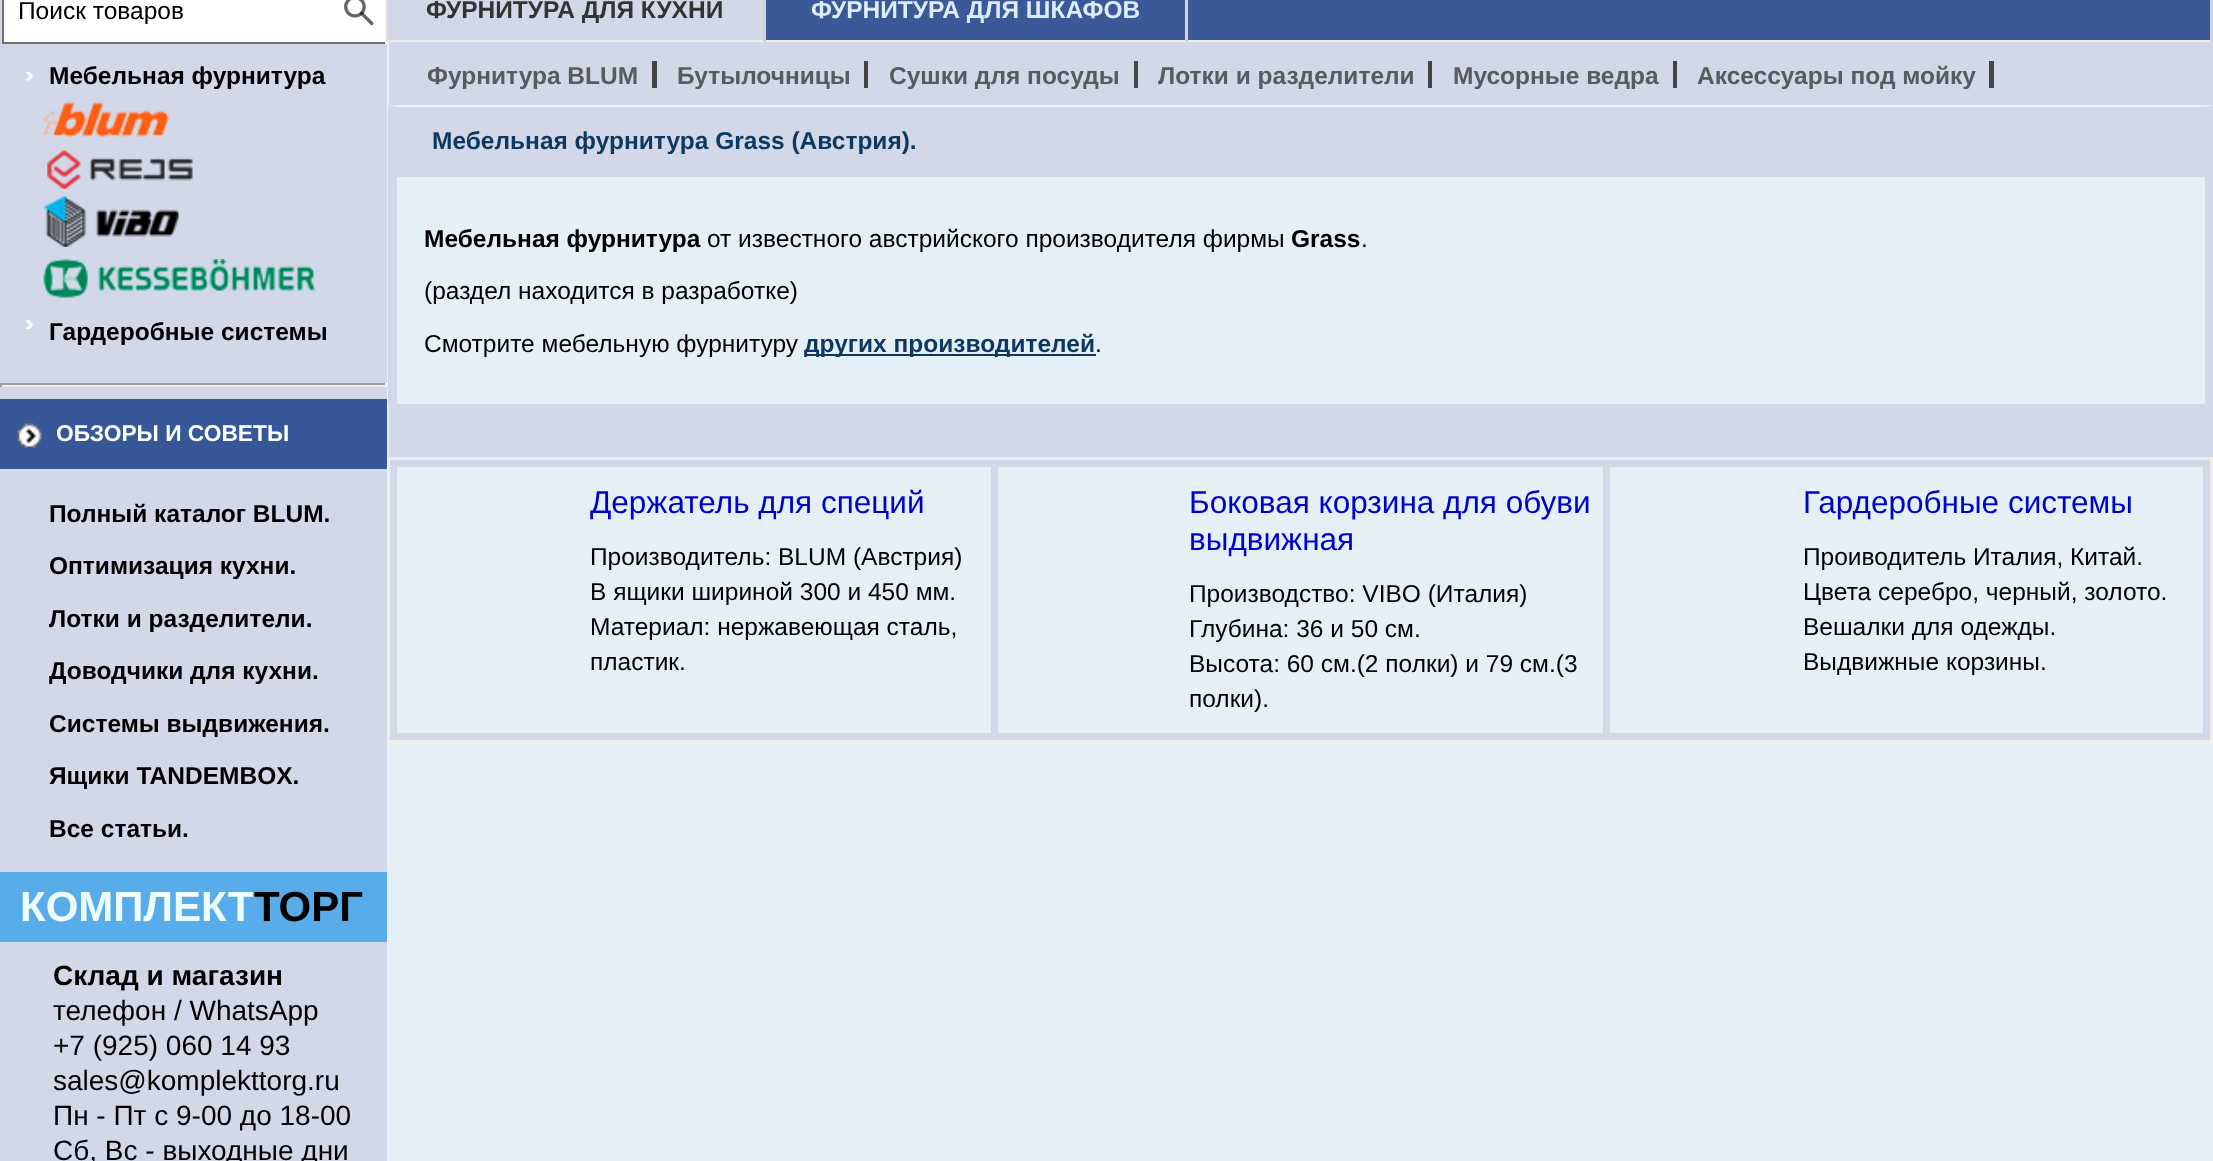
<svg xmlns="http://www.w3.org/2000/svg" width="2213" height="1161">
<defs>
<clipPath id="clip1"><rect width="385" height="44"/></clipPath>
</defs>
<rect width="100%" height="100%" fill="#d3d8e8"/>
<rect x="385" width="2" height="44" fill="#eee"/>
<rect x="4" width="381" height="42" fill="#fff"/>
<g clip-path="url(#clip1)">
<rect x="3" y="-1" width="383" height="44" fill="none" stroke="#707070" stroke-width="2"/>
</g>
<text x="18" y="19" style="font-family:Liberation Sans;font-size:24.5px;fill:#000">Поиск товаров</text>
<image x="344" y="0" width="30" height="26" href="media/1.png"/>
<image x="26" y="71" width="8" height="10" href="media/2.png"/>
<text x="49" y="84" style="font-family:Liberation Sans;font-size:24.5px;font-weight:bold;fill:#000">Мебельная фурнитура</text>
<image x="43" y="101" width="131" height="36" href="media/3.png"/>
<image x="47" y="150" width="146" height="39" href="media/4.png"/>
<image x="43" y="196" width="136" height="51" href="media/5.png"/>
<image x="43" y="259" width="272" height="39" href="media/6.png"/>
<image x="26" y="320" width="8" height="9" href="media/7.png"/>
<text x="49" y="340" style="font-family:Liberation Sans;font-size:24.5px;font-weight:bold;fill:#000">Гардеробные системы</text>
<rect y="383" width="387" height="2" fill="#9f9f9f"/>
<rect x="385" y="383" width="2" height="4" fill="#eee"/>
<rect y="385" width="387" height="2" fill="#eee"/>
<rect y="383" width="2" height="4" fill="#9f9f9f"/>
<rect y="399" width="387" height="70" fill="#365899"/>
<image x="17" y="423" width="25" height="25" href="media/8.png"/>
<text x="56" y="441" style="font-family:Liberation Sans;font-size:22.75px;font-weight:bold;fill:#fff">ОБЗОРЫ И СОВЕТЫ</text>
<text x="49" y="522" style="font-family:Liberation Sans;font-size:24.5px;font-weight:bold;fill:#000">Полный каталог BLUM.</text>
<text x="49" y="574" style="font-family:Liberation Sans;font-size:24.5px;font-weight:bold;fill:#000">Оптимизация кухни.</text>
<text x="49" y="627" style="font-family:Liberation Sans;font-size:24.5px;font-weight:bold;fill:#000">Лотки и разделители.</text>
<text x="49" y="679" style="font-family:Liberation Sans;font-size:24.5px;font-weight:bold;fill:#000">Доводчики для кухни.</text>
<text x="49" y="732" style="font-family:Liberation Sans;font-size:24.5px;font-weight:bold;fill:#000">Системы выдвижения.</text>
<text x="49" y="784" style="font-family:Liberation Sans;font-size:24.5px;font-weight:bold;fill:#000">Ящики TANDEMBOX.</text>
<text x="49" y="837" style="font-family:Liberation Sans;font-size:24.5px;font-weight:bold;fill:#000">Все статьи.</text>
<rect y="872" width="387" height="70" fill="#58ace9"/>
<text x="20" y="921" style="font-family:Liberation Sans;font-size:42px;font-weight:bold;fill:#eefdfd">КОМПЛЕКТ</text>
<text x="254" y="921" style="font-family:Liberation Sans;font-size:42px;font-weight:bold;fill:#000">ТОРГ</text>
<text x="53" y="985" style="font-family:Liberation Sans;font-size:28px;font-weight:bold;fill:#000">Склад и магазин</text>
<text x="53" y="1020" style="font-family:Liberation Sans;font-size:28px;fill:#000">телефон / WhatsApp</text>
<text x="53" y="1055" style="font-family:Liberation Sans;font-size:28px;fill:#000">+7 (925) 060 14 93</text>
<text x="53" y="1090" style="font-family:Liberation Sans;font-size:28px;fill:#000">sales@komplekttorg.ru</text>
<text x="53" y="1125" style="font-family:Liberation Sans;font-size:28px;fill:#000">Пн - Пт с 9-00 до 18-00</text>
<text x="53" y="1160" style="font-family:Liberation Sans;font-size:28px;fill:#000">Сб, Вс - выходные дни</text>
<rect x="763" width="1450" height="42" fill="#3b5998"/>
<path d="M766-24v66l-3-2v-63z" fill="#d2d2d2"/>
<path d="M766 42h-379v-2h376z" fill="#eeeeea"/>
<text x="426" y="18" style="font-family:Liberation Sans;font-size:24.5px;font-weight:bold;fill:#333">ФУРНИТУРА ДЛЯ КУХНИ</text>
<path d="M1188-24v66l-3-2v-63z" fill="#d2d2d2"/>
<path d="M1188 42h-422v-2h419z" fill="#eeeeea"/>
<text x="811" y="18" style="font-family:Liberation Sans;font-size:24.5px;font-weight:bold;fill:#deedfd">ФУРНИТУРА ДЛЯ ШКАФОВ</text>
<path d="M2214-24v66l-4-2v-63z" fill="#d2d2d2"/>
<path d="M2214 42h-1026v-2h1022z" fill="#eeeeea"/>
<rect x="387" y="42" width="2" height="63" fill="#eeeeea"/>
<rect x="652" y="61" width="5" height="27" fill="#444"/>
<text x="427" y="84" style="font-family:Liberation Sans;font-size:24.5px;font-weight:bold;fill:#585b5d">Фурнитура BLUM</text>
<rect x="864" y="61" width="4" height="27" fill="#444"/>
<text x="677" y="84" style="font-family:Liberation Sans;font-size:24.5px;font-weight:bold;fill:#585b5d">Бутылочницы</text>
<rect x="1134" y="61" width="4" height="27" fill="#444"/>
<text x="889" y="84" style="font-family:Liberation Sans;font-size:24.5px;font-weight:bold;fill:#585b5d">Сушки для посуды</text>
<rect x="1428" y="61" width="4" height="27" fill="#444"/>
<text x="1158" y="84" style="font-family:Liberation Sans;font-size:24.5px;font-weight:bold;fill:#585b5d">Лотки и разделители</text>
<rect x="1673" y="61" width="4" height="27" fill="#444"/>
<text x="1453" y="84" style="font-family:Liberation Sans;font-size:24.5px;font-weight:bold;fill:#585b5d">Мусорные ведра</text>
<rect x="1989" y="61" width="5" height="27" fill="#444"/>
<text x="1697" y="84" style="font-family:Liberation Sans;font-size:24.5px;font-weight:bold;fill:#585b5d">Аксессуары под мойку</text>
<rect x="387" y="105" width="1826" height="1056" fill="#e4f0f6"/>
<rect x="387" y="105" width="2" height="352" fill="#eeeeea"/>
<path d="M388 105h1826l-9 2h-1808z" fill="#eeeeea"/>
<path d="M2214 105v299h-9v-297z" fill="#d3d8e8"/>
<path d="M388 404v-299l9 2v297z" fill="#d3d8e8"/>
<rect x="397" y="107" width="1808" height="70" fill="#d3d8e8"/>
<text x="432" y="149" style="font-family:Liberation Sans;font-size:24.5px;font-weight:bold;fill:#0e385f">Мебельная фурнитура Grass (Австрия).</text>
<text x="424" y="247" style="font-family:Liberation Sans;font-size:24.5px;font-weight:bold;fill:#000">Мебельная фурнитура</text>
<text x="707" y="247" style="font-family:Liberation Sans;font-size:24.5px;fill:#000">от известного австрийского производителя фирмы</text>
<text x="1291" y="247" style="font-family:Liberation Sans;font-size:24.5px;font-weight:bold;fill:#000">Grass</text>
<text x="1361" y="247" style="font-family:Liberation Sans;font-size:24.5px;fill:#000">.</text>
<text x="424" y="299" style="font-family:Liberation Sans;font-size:24.5px;fill:#000">(раздел находится в разработке)</text>
<text x="424" y="352" style="font-family:Liberation Sans;font-size:24.5px;fill:#000">Смотрите мебельную фурнитуру</text>
<rect x="805" y="354" width="291" height="2" fill="#0e385f"/>
<text x="804" y="352" style="font-family:Liberation Sans;font-size:24.5px;font-weight:bold;fill:#0e385f">других производителей</text>
<text x="1095" y="352" style="font-family:Liberation Sans;font-size:24.5px;fill:#000">.</text>
<rect x="389" y="404" width="1824" height="53" fill="#d3d8e8"/>
<rect x="389" y="459" width="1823" height="283" fill="none" stroke="#eeeeea" stroke-width="4"/>
<rect x="393.5" y="463.5" width="601" height="273" fill="none" stroke="#d3d8e8" stroke-width="7"/>
<text x="590" y="513" style="font-family:Liberation Sans;font-size:31.5px;fill:#00c">Держатель для специй</text>
<text x="590" y="565" style="font-family:Liberation Sans;font-size:24.5px;fill:#000">Производитель: BLUM (Австрия)</text>
<text x="590" y="600" style="font-family:Liberation Sans;font-size:24.5px;fill:#000">В ящики шириной 300 и 450 мм.</text>
<text x="590" y="635" style="font-family:Liberation Sans;font-size:24.5px;fill:#000">Материал: нержавеющая сталь,</text>
<text x="590" y="670" style="font-family:Liberation Sans;font-size:24.5px;fill:#000">пластик.</text>
<rect x="998" y="460" width="605" height="7" fill="#d3d8e8"/>
<rect x="998" y="733" width="605" height="7" fill="#d3d8e8"/>
<text x="1189" y="513" style="font-family:Liberation Sans;font-size:31.5px;fill:#00c">Боковая корзина для обуви</text>
<text x="1189" y="550" style="font-family:Liberation Sans;font-size:31.5px;fill:#00c">выдвижная</text>
<text x="1189" y="602" style="font-family:Liberation Sans;font-size:24.5px;fill:#000">Производство: VIBO (Италия)</text>
<text x="1189" y="637" style="font-family:Liberation Sans;font-size:24.5px;fill:#000">Глубина: 36 и 50 см.</text>
<text x="1189" y="672" style="font-family:Liberation Sans;font-size:24.5px;fill:#000">Высота: 60 см.(2 полки) и 79 см.(3</text>
<text x="1189" y="707" style="font-family:Liberation Sans;font-size:24.5px;fill:#000">полки).</text>
<rect x="1606.5" y="463.5" width="600" height="273" fill="none" stroke="#d3d8e8" stroke-width="7"/>
<text x="1803" y="513" style="font-family:Liberation Sans;font-size:31.5px;fill:#00c">Гардеробные системы</text>
<text x="1803" y="565" style="font-family:Liberation Sans;font-size:24.5px;fill:#000">Проиводитель Италия, Китай.</text>
<text x="1803" y="600" style="font-family:Liberation Sans;font-size:24.5px;fill:#000">Цвета серебро, черный, золото.</text>
<text x="1803" y="635" style="font-family:Liberation Sans;font-size:24.5px;fill:#000">Вешалки для одежды.</text>
<text x="1803" y="670" style="font-family:Liberation Sans;font-size:24.5px;fill:#000">Выдвижные корзины.</text>
</svg>
